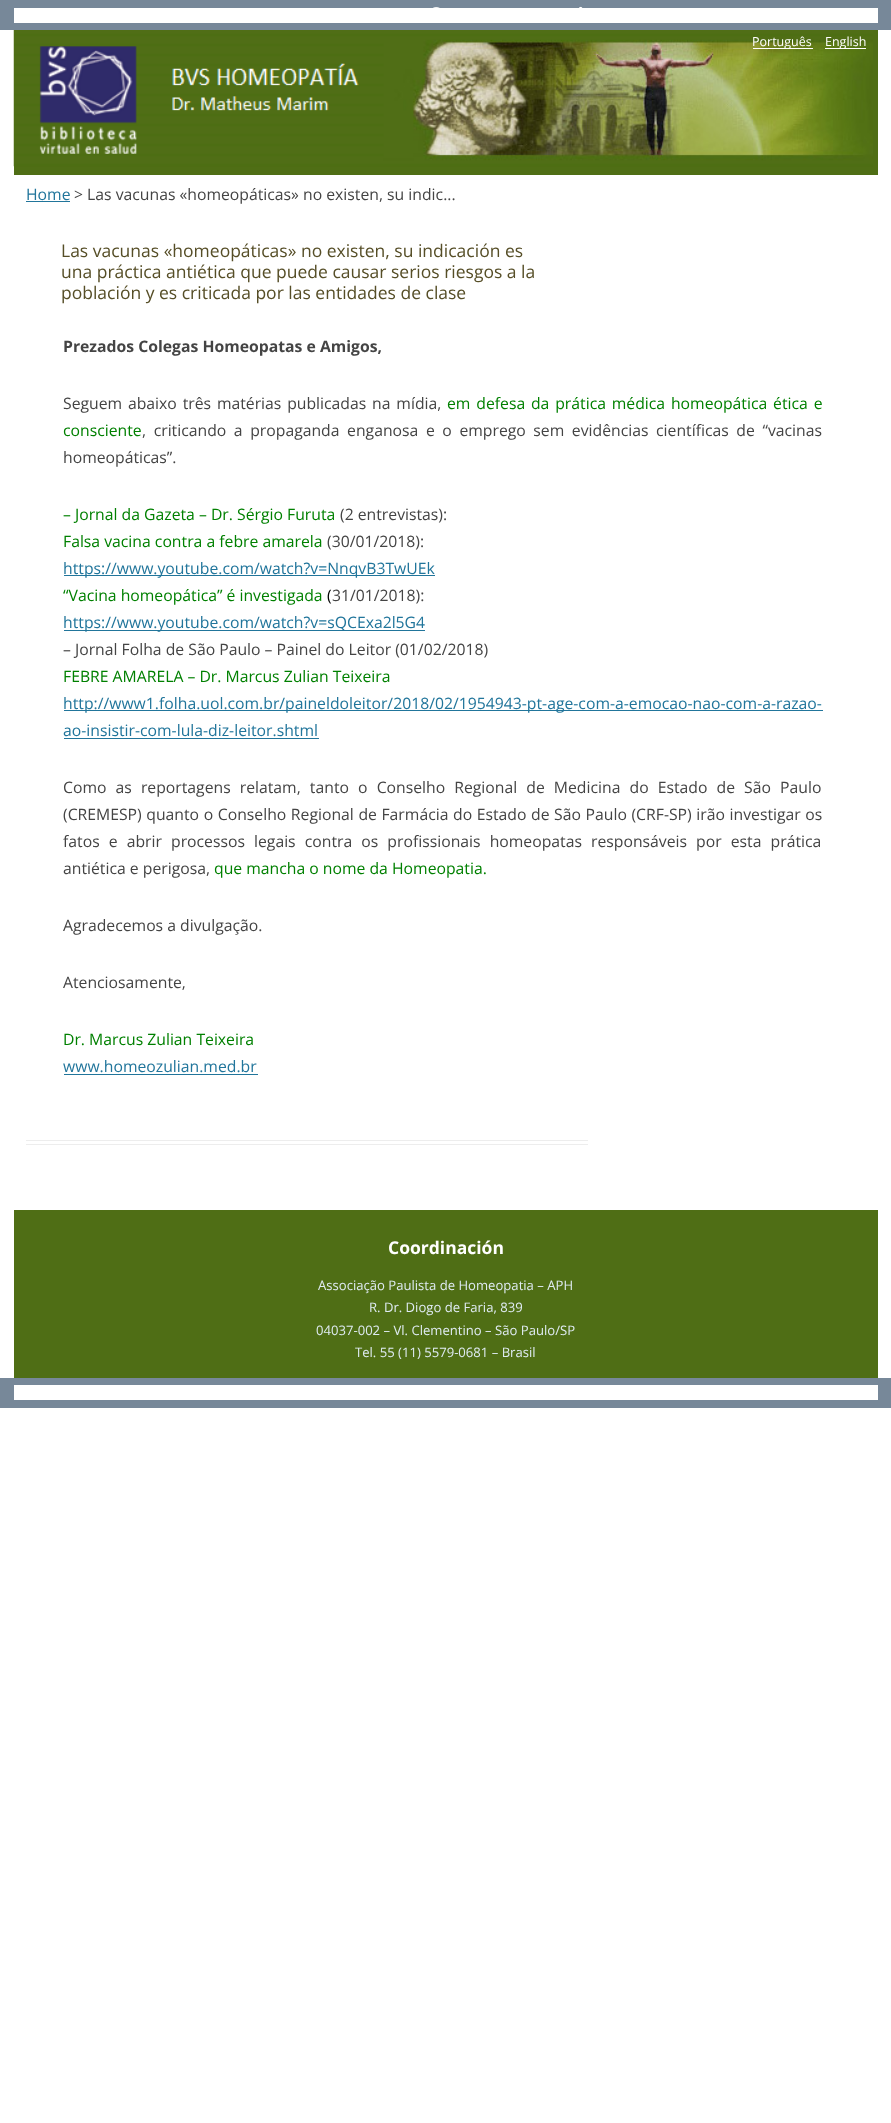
<svg xmlns="http://www.w3.org/2000/svg" width="891" height="2123">
<rect width="100%" height="100%" fill="#fff"/>
<rect width="891" height="30" fill="#789"/>
<rect x="14" y="8" width="864" height="15" fill="#fff"/>
<image x="433" y="7" width="7" height="1" href="media/1.png"/>
<image x="579" y="6" width="4" height="2" href="media/2.png"/>
<rect x="14" y="30" width="864" height="145" fill="#4f6e15"/>
<image x="13" y="30" width="860" height="137" href="media/3.png"/>
<rect x="753" y="48" width="60" height="1" fill="#fff"/>
<text x="752" y="46" style="font-family:Open Sans;font-size:12.5px;fill:#fff">Português</text>
<rect x="825" y="48" width="41" height="1" fill="#fff"/>
<text x="825" y="46" style="font-family:Open Sans;font-size:12.5px;fill:#fff">English</text>
<image x="39" y="46" width="98" height="108" href="media/4.png"/>
<text x="26" y="200" style="font-family:Open Sans;font-size:15.75px;fill:#21759b">Home</text>
<rect x="26" y="201" width="44" height="1" fill="#21759b"/>
<text x="74" y="200" style="font-family:Open Sans;font-size:15.75px;fill:#444">&gt; Las vacunas «homeopáticas» no existen, su indic...</text>
<rect x="26" y="1140" width="562" height="1" fill="#ededed"/>
<rect x="26" y="1144" width="562" height="1" fill="#ededed"/>
<text x="61" y="257" style="font-family:Open Sans;font-size:17.5px;fill:#564e27">Las vacunas «homeopáticas» no existen, su indicación es</text>
<text x="61" y="278" style="font-family:Open Sans;font-size:17.5px;fill:#564e27">una práctica antiética que puede causar serios riesgos a la</text>
<text x="61" y="299" style="font-family:Open Sans;font-size:17.5px;fill:#564e27">población y es criticada por las entidades de clase</text>
<text x="63" y="352" style="font-family:Open Sans;font-size:15.75px;font-weight:bold;fill:#444">Prezados Colegas Homeopatas e Amigos,</text>
<text x="63" y="409" word-spacing="1.75" style="font-family:Open Sans;font-size:15.75px;fill:#444">Seguem abaixo três matérias publicadas na mídia,</text>
<text x="447" y="409" word-spacing="1.75" style="font-family:Open Sans;font-size:15.75px;fill:#008000">em defesa da prática médica homeopática ética e</text>
<text x="63" y="436" style="font-family:Open Sans;font-size:15.75px;fill:#008000">consciente</text>
<text x="142" y="436" word-spacing="3.5" style="font-family:Open Sans;font-size:15.75px;fill:#444">, criticando a propaganda enganosa e o emprego sem evidências científicas de “vacinas</text>
<text x="63" y="463" style="font-family:Open Sans;font-size:15.75px;fill:#444">homeopáticas”.</text>
<text x="63" y="520" style="font-family:Open Sans;font-size:15.75px;fill:#008000">– Jornal da Gazeta – Dr. Sérgio Furuta</text>
<text x="340" y="520" style="font-family:Open Sans;font-size:15.75px;fill:#444">(2 entrevistas):</text>
<text x="63" y="547" style="font-family:Open Sans;font-size:15.75px;fill:#008000">Falsa vacina contra a febre amarela</text>
<text x="327" y="547" style="font-family:Open Sans;font-size:15.75px;fill:#444">(30/01/2018):</text>
<rect x="64" y="575" width="371" height="1" fill="#21759b"/>
<text x="63" y="574" style="font-family:Open Sans;font-size:15.75px;fill:#21759b">https://www.youtube.com/watch?v=NnqvB3TwUEk</text>
<text x="63" y="601" style="font-family:Open Sans;font-size:15.75px;fill:#008000">“Vacina homeopática” é investigada</text>
<text x="327" y="601" style="font-family:Open Sans;font-size:15.75px;fill:#000">(</text>
<text x="332" y="601" style="font-family:Open Sans;font-size:15.75px;fill:#444">31/01/2018):</text>
<rect x="64" y="630" width="361" height="1" fill="#21759b"/>
<text x="63" y="628" style="font-family:Open Sans;font-size:15.75px;fill:#21759b">https://www.youtube.com/watch?v=sQCExa2l5G4</text>
<text x="63" y="655" style="font-family:Open Sans;font-size:15.75px;fill:#444">– Jornal Folha de São Paulo – Painel do Leitor (01/02/2018)</text>
<text x="63" y="682" style="font-family:Open Sans;font-size:15.75px;fill:#008000">FEBRE AMARELA – Dr. Marcus Zulian Teixeira</text>
<rect x="64" y="710" width="759" height="1" fill="#21759b"/>
<text x="63" y="709" style="font-family:Open Sans;font-size:15.75px;fill:#21759b">http://www1.folha.uol.com.br/paineldoleitor/2018/02/1954943-pt-age-com-a-emocao-nao-com-a-razao-</text>
<text x="63" y="736" style="font-family:Open Sans;font-size:15.75px;fill:#21759b">ao-insistir-com-lula-diz-leitor.shtml</text>
<rect x="64" y="738" width="255" height="1" fill="#21759b"/>
<text x="63" y="793" word-spacing="5" style="font-family:Open Sans;font-size:15.75px;fill:#444">Como as reportagens relatam, tanto o Conselho Regional de Medicina do Estado de São Paulo</text>
<text x="63" y="820" word-spacing="0.5" style="font-family:Open Sans;font-size:15.75px;fill:#444">(CREMESP) quanto o Conselho Regional de Farmácia do Estado de São Paulo (CRF-SP) irão investigar os</text>
<text x="63" y="847" word-spacing="5" style="font-family:Open Sans;font-size:15.75px;fill:#444">fatos e abrir processos legais contra os profissionais homeopatas responsáveis por esta prática</text>
<text x="63" y="874" style="font-family:Open Sans;font-size:15.75px;fill:#444">antiética e perigosa,</text>
<text x="214" y="874" style="font-family:Open Sans;font-size:15.75px;fill:#008000">que mancha o nome da Homeopatia.</text>
<text x="63" y="931" style="font-family:Open Sans;font-size:15.75px;fill:#444">Agradecemos a divulgação.</text>
<text x="63" y="988" style="font-family:Open Sans;font-size:15.75px;fill:#444">Atenciosamente,</text>
<text x="63" y="1045" style="font-family:Open Sans;font-size:15.75px;fill:#008000">Dr. Marcus Zulian Teixeira</text>
<text x="63" y="1072" style="font-family:Open Sans;font-size:15.75px;fill:#21759b">www.homeozulian.med.br</text>
<rect x="64" y="1074" width="194" height="1" fill="#21759b"/>
<rect x="14" y="1210" width="864" height="168" fill="#4f6e15"/>
<text x="388" y="1254" style="font-family:Open Sans;font-size:17.5px;font-weight:bold;fill:#fff">Coordinación</text>
<text x="318" y="1290" style="font-family:Open Sans;font-size:13.1px;fill:#dfebf2">Associação Paulista de Homeopatia – APH</text>
<text x="369" y="1312" style="font-family:Open Sans;font-size:13.1px;fill:#dfebf2">R. Dr. Diogo de Faria, 839</text>
<text x="316" y="1335" style="font-family:Open Sans;font-size:13.1px;fill:#dfebf2">04037-002 – Vl. Clementino – São Paulo/SP</text>
<text x="355" y="1357" style="font-family:Open Sans;font-size:13.1px;fill:#dfebf2">Tel. 55 (11) 5579-0681 – Brasil</text>
<rect y="1378" width="891" height="30" fill="#789"/>
<rect x="14" y="1385" width="864" height="15" fill="#fff"/>
</svg>
